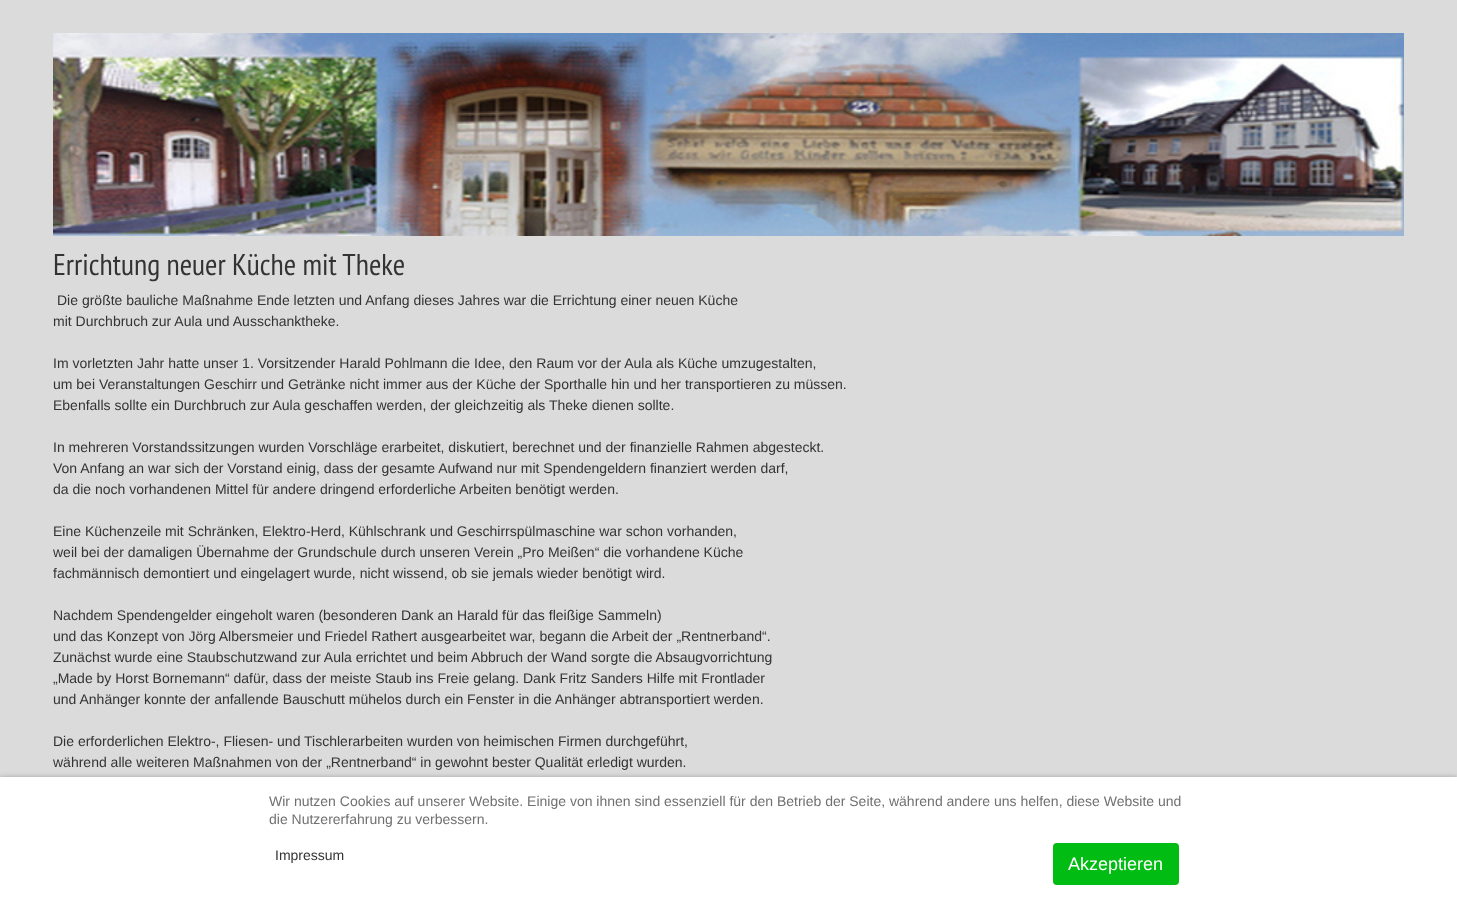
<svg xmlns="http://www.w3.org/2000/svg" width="1457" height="900">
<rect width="100%" height="100%" fill="#dbdbdb"/>
<image x="53" y="33" width="1351" height="203" href="media/1.png"/>
<text x="53" y="275" style="font-family:PT Sans Narrow;font-size:30px;fill:#333">Errichtung neuer Küche mit Theke</text>
<text x="57" y="305" style="font-family:Liberation Sans;font-size:14px;fill:#333">Die größte bauliche Maßnahme Ende letzten und Anfang dieses Jahres war die Errichtung einer neuen Küche</text>
<text x="53" y="326" style="font-family:Liberation Sans;font-size:14px;fill:#333">mit Durchbruch zur Aula und Ausschanktheke.</text>
<text x="53" y="368" style="font-family:Liberation Sans;font-size:14px;fill:#333">Im vorletzten Jahr hatte unser 1. Vorsitzender Harald Pohlmann die Idee, den Raum vor der Aula als Küche umzugestalten,</text>
<text x="53" y="389" style="font-family:Liberation Sans;font-size:14px;fill:#333">um bei Veranstaltungen Geschirr und Getränke nicht immer aus der Küche der Sporthalle hin und her transportieren zu müssen.</text>
<text x="53" y="410" style="font-family:Liberation Sans;font-size:14px;fill:#333">Ebenfalls sollte ein Durchbruch zur Aula geschaffen werden, der gleichzeitig als Theke dienen sollte.</text>
<text x="53" y="452" style="font-family:Liberation Sans;font-size:14px;fill:#333">In mehreren Vorstandssitzungen wurden Vorschläge erarbeitet, diskutiert, berechnet und der finanzielle Rahmen abgesteckt.</text>
<text x="53" y="473" style="font-family:Liberation Sans;font-size:14px;fill:#333">Von Anfang an war sich der Vorstand einig, dass der gesamte Aufwand nur mit Spendengeldern finanziert werden darf,</text>
<text x="53" y="494" style="font-family:Liberation Sans;font-size:14px;fill:#333">da die noch vorhandenen Mittel für andere dringend erforderliche Arbeiten benötigt werden.</text>
<text x="53" y="536" style="font-family:Liberation Sans;font-size:14px;fill:#333">Eine Küchenzeile mit Schränken, Elektro-Herd, Kühlschrank und Geschirrspülmaschine war schon vorhanden,</text>
<text x="53" y="557" style="font-family:Liberation Sans;font-size:14px;fill:#333">weil bei der damaligen Übernahme der Grundschule durch unseren Verein „Pro Meißen“ die vorhandene Küche</text>
<text x="53" y="578" style="font-family:Liberation Sans;font-size:14px;fill:#333">fachmännisch demontiert und eingelagert wurde, nicht wissend, ob sie jemals wieder benötigt wird.</text>
<text x="53" y="620" style="font-family:Liberation Sans;font-size:14px;fill:#333">Nachdem Spendengelder eingeholt waren (besonderen Dank an Harald für das fleißige Sammeln)</text>
<text x="53" y="641" style="font-family:Liberation Sans;font-size:14px;fill:#333">und das Konzept von Jörg Albersmeier und Friedel Rathert ausgearbeitet war, begann die Arbeit der „Rentnerband“.</text>
<text x="53" y="662" style="font-family:Liberation Sans;font-size:14px;fill:#333">Zunächst wurde eine Staubschutzwand zur Aula errichtet und beim Abbruch der Wand sorgte die Absaugvorrichtung</text>
<text x="53" y="683" style="font-family:Liberation Sans;font-size:14px;fill:#333">„Made by Horst Bornemann“ dafür, dass der meiste Staub ins Freie gelang. Dank Fritz Sanders Hilfe mit Frontlader</text>
<text x="53" y="704" style="font-family:Liberation Sans;font-size:14px;fill:#333">und Anhänger konnte der anfallende Bauschutt mühelos durch ein Fenster in die Anhänger abtransportiert werden.</text>
<text x="53" y="746" style="font-family:Liberation Sans;font-size:14px;fill:#333">Die erforderlichen Elektro-, Fliesen- und Tischlerarbeiten wurden von heimischen Firmen durchgeführt,</text>
<text x="53" y="767" style="font-family:Liberation Sans;font-size:14px;fill:#333">während alle weiteren Maßnahmen von der „Rentnerband“ in gewohnt bester Qualität erledigt wurden.</text>
<rect y="777" width="1457" height="123" fill="#00000040" filter="blur(2.5px)"/>
<rect y="777" width="1457" height="123" fill="#fff"/>
<text x="269" y="806" style="font-family:Liberation Sans;font-size:14px;fill:#707070">Wir nutzen Cookies auf unserer Website. Einige von ihnen sind essenziell für den Betrieb der Seite, während andere uns helfen, diese Website und</text>
<text x="269" y="824" style="font-family:Liberation Sans;font-size:14px;fill:#707070">die Nutzererfahrung zu verbessern.</text>
<text x="275" y="860" style="font-family:Liberation Sans;font-size:14px;fill:#333">Impressum</text>
<rect x="1053" y="843" width="126" height="42" rx="4" fill="#00bc13"/>
<text x="1068" y="870" style="font-family:Liberation Sans;font-size:18px;fill:#fff">Akzeptieren</text>
</svg>
